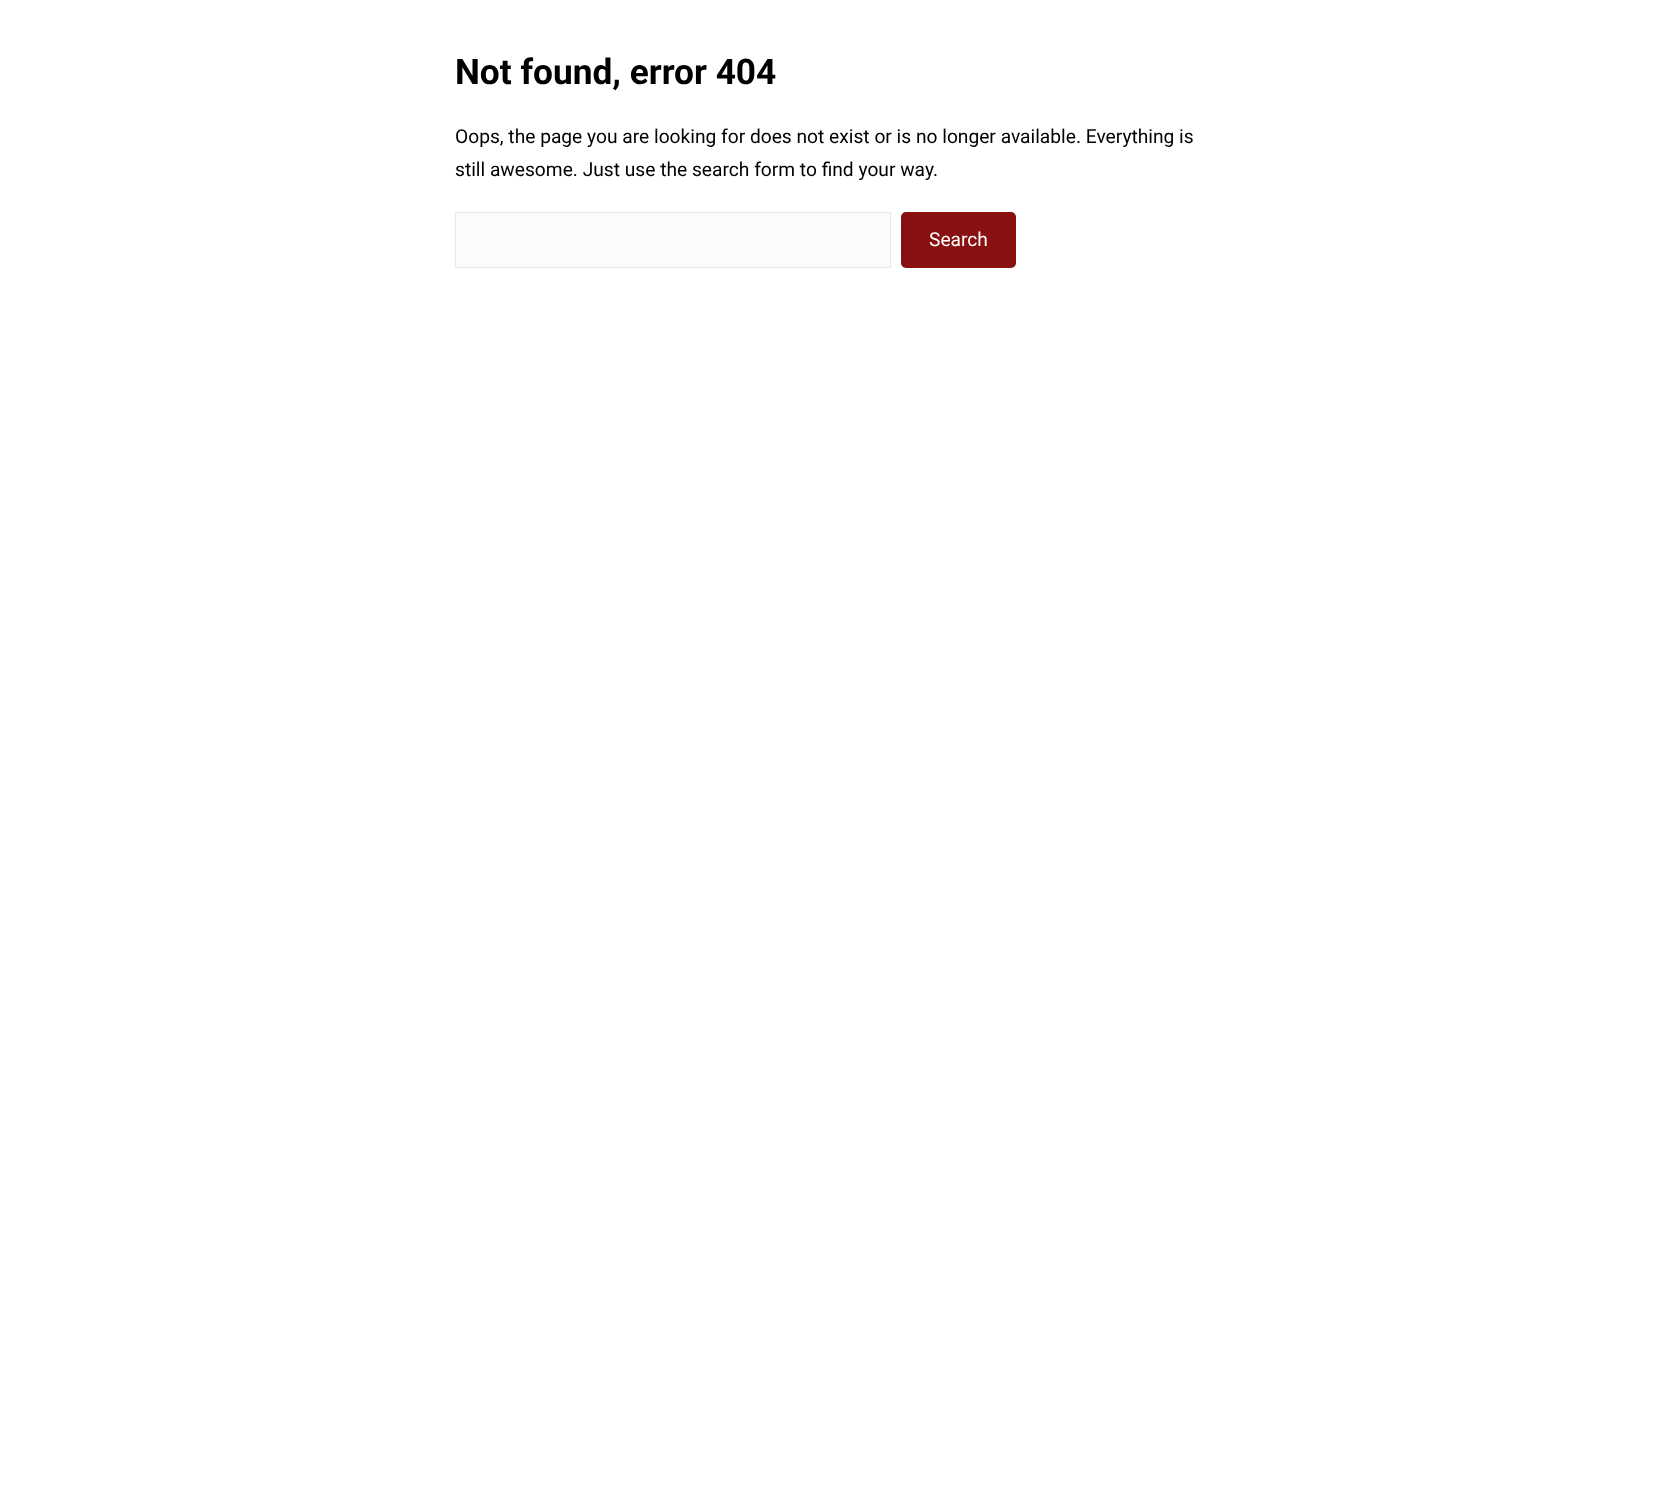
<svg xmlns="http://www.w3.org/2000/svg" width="1657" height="1509">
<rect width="100%" height="100%" fill="#fff"/>
<text x="455" y="84" style="font-family:Roboto;font-size:35.25px;font-weight:bold;fill:#000001">Not found, error 404</text>
<text x="455" y="143" style="font-family:Roboto;font-size:19.2px;fill:#000001">Oops, the page you are looking for does not exist or is no longer available. Everything is</text>
<text x="455" y="176" style="font-family:Roboto;font-size:19.2px;fill:#000001">still awesome. Just use the search form to find your way.</text>
<rect x="455.5" y="212.5" width="435" height="55" fill="#fafbfd" stroke="#e8e8e9"/>
<rect x="901" y="212" width="115" height="56" rx="5" fill="#881010"/>
<text x="929" y="246" style="font-family:Roboto;font-size:19.2px;fill:#fffffd">Search</text>
</svg>
